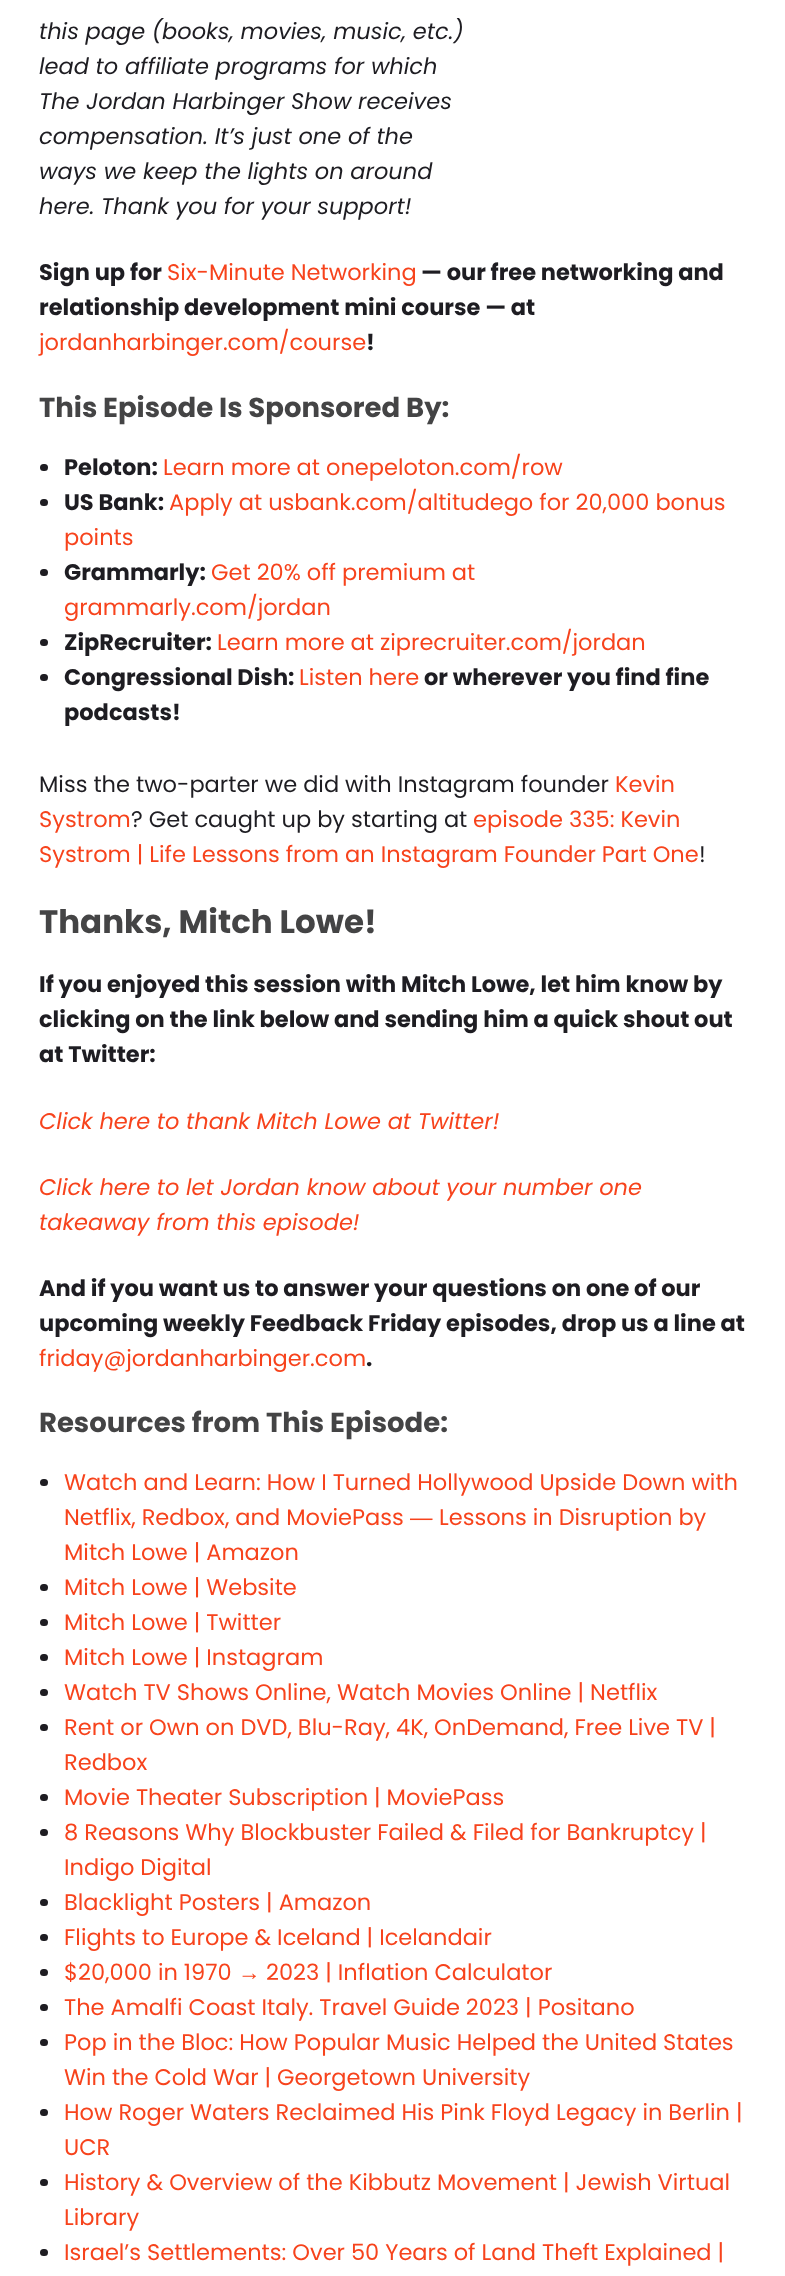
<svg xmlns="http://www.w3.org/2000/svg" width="785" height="2276">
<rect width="100%" height="100%" fill="#fff"/>
<text x="39" y="39" style="font-family:Poppins;font-size:22.5px;font-style:italic;fill:#1e1d22">this page (books, movies, music, etc.)</text>
<text x="39" y="74" style="font-family:Poppins;font-size:22.5px;font-style:italic;fill:#1e1d22">lead to affiliate programs for which</text>
<text x="39" y="109" style="font-family:Poppins;font-size:22.5px;font-style:italic;fill:#1e1d22">The Jordan Harbinger Show receives</text>
<text x="39" y="144" style="font-family:Poppins;font-size:22.5px;font-style:italic;fill:#1e1d22">compensation. It’s just one of the</text>
<text x="39" y="179" style="font-family:Poppins;font-size:22.5px;font-style:italic;fill:#1e1d22">ways we keep the lights on around</text>
<text x="39" y="214" style="font-family:Poppins;font-size:22.5px;font-style:italic;fill:#1e1d22">here. Thank you for your support!</text>
<text x="39" y="280" style="font-family:Poppins;font-size:22.5px;font-weight:bold;fill:#1e1d22">Sign up for</text>
<text x="167" y="280" style="font-family:Poppins;font-size:22.5px;fill:#f7431c">Six-Minute Networking</text>
<text x="421" y="280" style="font-family:Poppins;font-size:22.5px;font-weight:bold;fill:#1e1d22">— our free networking and</text>
<text x="39" y="315" style="font-family:Poppins;font-size:22.5px;font-weight:bold;fill:#1e1d22">relationship development mini course — at</text>
<text x="39" y="350" style="font-family:Poppins;font-size:22.5px;fill:#f7431c">jordanharbinger.com/course</text>
<text x="366" y="350" style="font-family:Poppins;font-size:22.5px;font-weight:bold;fill:#1e1d22">!</text>
<text x="39" y="417" style="font-family:Poppins;font-size:27.5px;font-weight:bold;fill:#444445">This Episode Is Sponsored By:</text>
<rect x="40" y="464" width="8" height="7" rx="3.5" fill="#1e1d22"/>
<text x="64" y="475" style="font-family:Poppins;font-size:22.5px;font-weight:bold;fill:#1e1d22">Peloton:</text>
<text x="163" y="475" style="font-family:Poppins;font-size:22.5px;fill:#f7431c">Learn more at onepeloton.com/row</text>
<rect x="40" y="499" width="8" height="7" rx="3.5" fill="#1e1d22"/>
<text x="64" y="510" style="font-family:Poppins;font-size:22.5px;font-weight:bold;fill:#1e1d22">US Bank:</text>
<text x="169" y="510" style="font-family:Poppins;font-size:22.5px;fill:#f7431c">Apply at usbank.com/altitudego for 20,000 bonus</text>
<text x="64" y="545" style="font-family:Poppins;font-size:22.5px;fill:#f7431c">points</text>
<rect x="40" y="569" width="8" height="7" rx="3.5" fill="#1e1d22"/>
<text x="64" y="580" style="font-family:Poppins;font-size:22.5px;font-weight:bold;fill:#1e1d22">Grammarly:</text>
<text x="211" y="580" style="font-family:Poppins;font-size:22.5px;fill:#f7431c">Get 20% off premium at</text>
<text x="64" y="615" style="font-family:Poppins;font-size:22.5px;fill:#f7431c">grammarly.com/jordan</text>
<rect x="40" y="639" width="8" height="7" rx="3.5" fill="#1e1d22"/>
<text x="64" y="650" style="font-family:Poppins;font-size:22.5px;font-weight:bold;fill:#1e1d22">ZipRecruiter:</text>
<text x="217" y="650" style="font-family:Poppins;font-size:22.5px;fill:#f7431c">Learn more at ziprecruiter.com/jordan</text>
<rect x="40" y="674" width="8" height="7" rx="3.5" fill="#1e1d22"/>
<text x="64" y="685" style="font-family:Poppins;font-size:22.5px;font-weight:bold;fill:#1e1d22">Congressional Dish:</text>
<text x="299" y="685" style="font-family:Poppins;font-size:22.5px;fill:#f7431c">Listen here</text>
<text x="424" y="685" style="font-family:Poppins;font-size:22.5px;font-weight:bold;fill:#1e1d22">or wherever you find fine</text>
<text x="64" y="720" style="font-family:Poppins;font-size:22.5px;font-weight:bold;fill:#1e1d22">podcasts!</text>
<text x="39" y="792" style="font-family:Poppins;font-size:22.5px;fill:#1e1d22">Miss the two-parter we did with Instagram founder</text>
<text x="615" y="792" style="font-family:Poppins;font-size:22.5px;fill:#f7431c">Kevin</text>
<text x="39" y="827" style="font-family:Poppins;font-size:22.5px;fill:#f7431c">Systrom</text>
<text x="131" y="827" style="font-family:Poppins;font-size:22.5px;fill:#1e1d22">? Get caught up by starting at</text>
<text x="473" y="827" style="font-family:Poppins;font-size:22.5px;fill:#f7431c">episode 335: Kevin</text>
<text x="39" y="862" style="font-family:Poppins;font-size:22.5px;fill:#f7431c">Systrom | Life Lessons from an Instagram Founder Part One</text>
<text x="699" y="862" style="font-family:Poppins;font-size:22.5px;fill:#1e1d22">!</text>
<text x="39" y="933" style="font-family:Poppins;font-size:32.5px;font-weight:bold;fill:#444445">Thanks, Mitch Lowe!</text>
<text x="39" y="992" style="font-family:Poppins;font-size:22.5px;font-weight:bold;fill:#1e1d22">If you enjoyed this session with Mitch Lowe, let him know by</text>
<text x="39" y="1027" style="font-family:Poppins;font-size:22.5px;font-weight:bold;fill:#1e1d22">clicking on the link below and sending him a quick shout out</text>
<text x="39" y="1062" style="font-family:Poppins;font-size:22.5px;font-weight:bold;fill:#1e1d22">at Twitter:</text>
<text x="39" y="1129" style="font-family:Poppins;font-size:22.5px;font-style:italic;fill:#f7431c">Click here to thank Mitch Lowe at Twitter!</text>
<text x="39" y="1195" style="font-family:Poppins;font-size:22.5px;font-style:italic;fill:#f7431c">Click here to let Jordan know about your number one</text>
<text x="39" y="1230" style="font-family:Poppins;font-size:22.5px;font-style:italic;fill:#f7431c">takeaway from this episode!</text>
<text x="39" y="1296" style="font-family:Poppins;font-size:22.5px;font-weight:bold;fill:#1e1d22">And if you want us to answer your questions on one of our</text>
<text x="39" y="1331" style="font-family:Poppins;font-size:22.5px;font-weight:bold;fill:#1e1d22">upcoming weekly Feedback Friday episodes, drop us a line at</text>
<text x="39" y="1366" style="font-family:Poppins;font-size:22.5px;fill:#f7431c">friday@jordanharbinger.com</text>
<text x="366" y="1366" style="font-family:Poppins;font-size:22.5px;font-weight:bold;fill:#1e1d22">.</text>
<text x="39" y="1432" style="font-family:Poppins;font-size:27.5px;font-weight:bold;fill:#444445">Resources from This Episode:</text>
<rect x="40" y="1479" width="8" height="7" rx="3.5" fill="#1e1d22"/>
<text x="64" y="1490" style="font-family:Poppins;font-size:22.5px;fill:#f7431c">Watch and Learn: How I Turned Hollywood Upside Down with</text>
<text x="64" y="1525" style="font-family:Poppins;font-size:22.5px;fill:#f7431c">Netflix, Redbox, and MoviePass</text>
<text x="410" y="1525" style="font-family:Liberation Sans;font-size:22.5px;fill:#f7431c">―</text>
<text x="439" y="1525" style="font-family:Poppins;font-size:22.5px;fill:#f7431c">Lessons in Disruption by</text>
<text x="64" y="1560" style="font-family:Poppins;font-size:22.5px;fill:#f7431c">Mitch Lowe | Amazon</text>
<rect x="40" y="1584" width="8" height="7" rx="3.5" fill="#1e1d22"/>
<text x="64" y="1595" style="font-family:Poppins;font-size:22.5px;fill:#f7431c">Mitch Lowe | Website</text>
<rect x="40" y="1619" width="8" height="7" rx="3.5" fill="#1e1d22"/>
<text x="64" y="1630" style="font-family:Poppins;font-size:22.5px;fill:#f7431c">Mitch Lowe | Twitter</text>
<rect x="40" y="1654" width="8" height="7" rx="3.5" fill="#1e1d22"/>
<text x="64" y="1665" style="font-family:Poppins;font-size:22.5px;fill:#f7431c">Mitch Lowe | Instagram</text>
<rect x="40" y="1689" width="8" height="7" rx="3.5" fill="#1e1d22"/>
<text x="64" y="1700" style="font-family:Poppins;font-size:22.5px;fill:#f7431c">Watch TV Shows Online, Watch Movies Online | Netflix</text>
<rect x="40" y="1724" width="8" height="7" rx="3.5" fill="#1e1d22"/>
<text x="64" y="1735" style="font-family:Poppins;font-size:22.5px;fill:#f7431c">Rent or Own on DVD, Blu-Ray, 4K, OnDemand, Free Live TV |</text>
<text x="64" y="1770" style="font-family:Poppins;font-size:22.5px;fill:#f7431c">Redbox</text>
<rect x="40" y="1794" width="8" height="7" rx="3.5" fill="#1e1d22"/>
<text x="64" y="1805" style="font-family:Poppins;font-size:22.5px;fill:#f7431c">Movie Theater Subscription | MoviePass</text>
<rect x="40" y="1829" width="8" height="7" rx="3.5" fill="#1e1d22"/>
<text x="64" y="1840" style="font-family:Poppins;font-size:22.5px;fill:#f7431c">8 Reasons Why Blockbuster Failed &amp; Filed for Bankruptcy |</text>
<text x="64" y="1875" style="font-family:Poppins;font-size:22.5px;fill:#f7431c">Indigo Digital</text>
<rect x="40" y="1899" width="8" height="7" rx="3.5" fill="#1e1d22"/>
<text x="64" y="1910" style="font-family:Poppins;font-size:22.5px;fill:#f7431c">Blacklight Posters | Amazon</text>
<rect x="40" y="1934" width="8" height="7" rx="3.5" fill="#1e1d22"/>
<text x="64" y="1945" style="font-family:Poppins;font-size:22.5px;fill:#f7431c">Flights to Europe &amp; Iceland | Icelandair</text>
<rect x="40" y="1969" width="8" height="7" rx="3.5" fill="#1e1d22"/>
<text x="64" y="1980" style="font-family:Poppins;font-size:22.5px;fill:#f7431c">$20,000 in 1970</text>
<text x="238" y="1980" style="font-family:Liberation Sans;font-size:22.5px;fill:#f7431c">→</text>
<text x="266" y="1980" style="font-family:Poppins;font-size:22.5px;fill:#f7431c">2023 | Inflation Calculator</text>
<rect x="40" y="2004" width="8" height="7" rx="3.5" fill="#1e1d22"/>
<text x="64" y="2015" style="font-family:Poppins;font-size:22.5px;fill:#f7431c">The Amalfi Coast Italy. Travel Guide 2023 | Positano</text>
<rect x="40" y="2039" width="8" height="7" rx="3.5" fill="#1e1d22"/>
<text x="64" y="2050" style="font-family:Poppins;font-size:22.5px;fill:#f7431c">Pop in the Bloc: How Popular Music Helped the United States</text>
<text x="64" y="2085" style="font-family:Poppins;font-size:22.5px;fill:#f7431c">Win the Cold War | Georgetown University</text>
<rect x="40" y="2109" width="8" height="7" rx="3.5" fill="#1e1d22"/>
<text x="64" y="2120" style="font-family:Poppins;font-size:22.5px;fill:#f7431c">How Roger Waters Reclaimed His Pink Floyd Legacy in Berlin |</text>
<text x="64" y="2155" style="font-family:Poppins;font-size:22.5px;fill:#f7431c">UCR</text>
<rect x="40" y="2179" width="8" height="7" rx="3.5" fill="#1e1d22"/>
<text x="64" y="2190" style="font-family:Poppins;font-size:22.5px;fill:#f7431c">History &amp; Overview of the Kibbutz Movement | Jewish Virtual</text>
<text x="64" y="2225" style="font-family:Poppins;font-size:22.5px;fill:#f7431c">Library</text>
<rect x="40" y="2249" width="8" height="7" rx="3.5" fill="#1e1d22"/>
<text x="64" y="2260" style="font-family:Poppins;font-size:22.5px;fill:#f7431c">Israel’s Settlements: Over 50 Years of Land Theft Explained |</text>
</svg>
